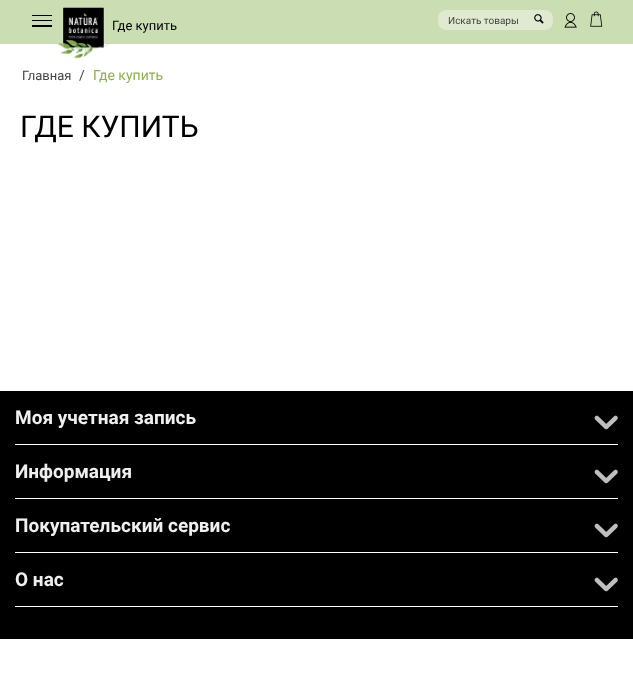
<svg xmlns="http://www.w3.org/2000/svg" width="633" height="683">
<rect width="100%" height="100%" fill="#fff"/>
<rect width="633" height="44" fill="#cbddb3"/>
<rect x="32" y="15" width="20" height="1" fill="#000"/>
<rect x="32" y="20" width="20" height="1" fill="#000"/>
<rect x="32" y="25" width="20" height="2" fill="#000"/>
<image x="57" y="7" width="53" height="52" href="media/1.png"/>
<text x="112" y="30" style="font-family:Roboto;font-size:13px;fill:#000">Где купить</text>
<rect x="438" y="10" width="115" height="20" rx="8" fill="#dfead0"/>
<text x="448" y="24" style="font-family:Roboto;font-size:10px;fill:#434343">Искать товары</text>
<image x="534" y="14" width="10" height="10" href="media/2.png"/>
<image x="564" y="13" width="13" height="15" href="media/3.png"/>
<image x="590" y="11" width="13" height="16" href="media/4.png"/>
<text x="22" y="80" style="font-family:Roboto;font-size:13px;fill:#434343">Главная</text>
<text x="79" y="80" style="font-family:Roboto;font-size:14px;fill:#434343">/</text>
<text x="93" y="80" style="font-family:Roboto;font-size:14px;fill:#8daf51">Где купить</text>
<text x="20" y="137" style="font-family:Roboto;font-size:30px;fill:#000">ГДЕ КУПИТЬ</text>
<rect y="391" width="633" height="248" fill="#000"/>
<rect x="15" y="444" width="603" height="1" fill="#fff"/>
<text x="15" y="424" style="font-family:Roboto;font-size:19px;font-weight:bold;fill:#efefef">Моя учетная запись</text>
<image x="594" y="415" width="24" height="15" href="media/5.png"/>
<rect x="15" y="498" width="603" height="1" fill="#fff"/>
<text x="15" y="478" style="font-family:Roboto;font-size:19px;font-weight:bold;fill:#efefef">Информация</text>
<image x="594" y="469" width="24" height="15" href="media/5.png"/>
<rect x="15" y="552" width="603" height="1" fill="#fff"/>
<text x="15" y="532" style="font-family:Roboto;font-size:19px;font-weight:bold;fill:#efefef">Покупательский сервис</text>
<image x="594" y="523" width="24" height="15" href="media/5.png"/>
<rect x="15" y="606" width="603" height="1" fill="#fff"/>
<text x="15" y="586" style="font-family:Roboto;font-size:19px;font-weight:bold;fill:#efefef">О нас</text>
<image x="594" y="577" width="24" height="15" href="media/5.png"/>
</svg>
